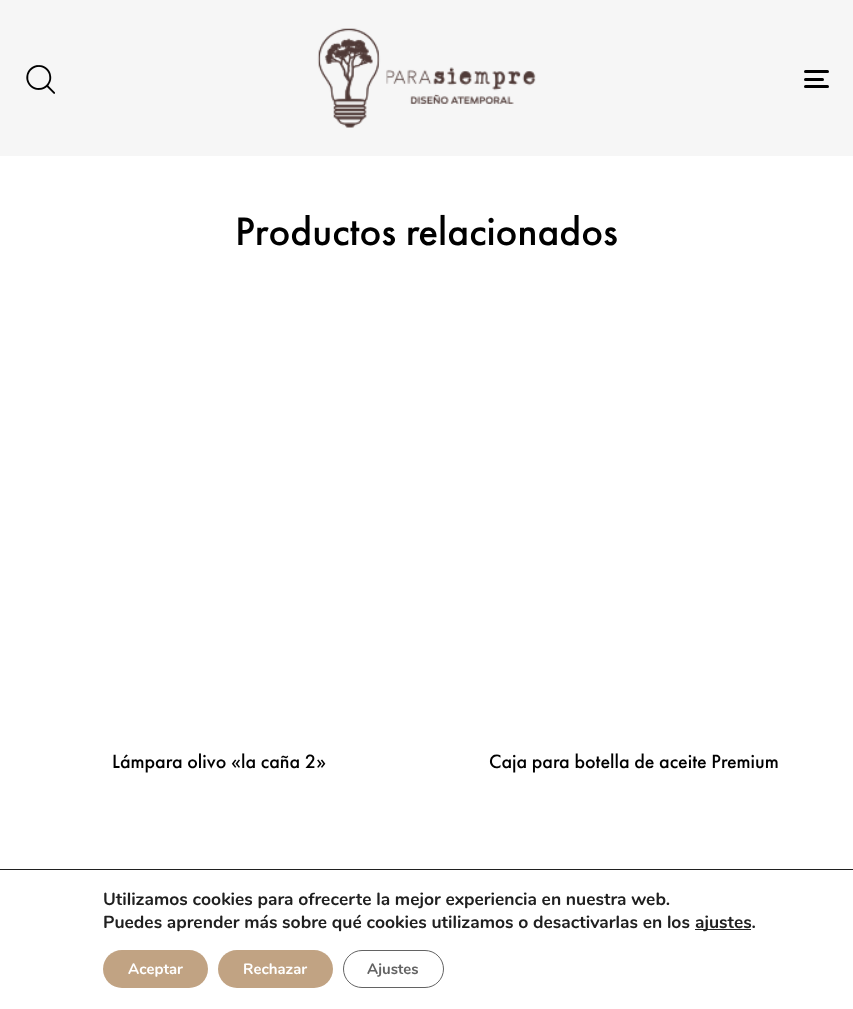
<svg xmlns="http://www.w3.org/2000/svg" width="853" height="1009">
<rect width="100%" height="100%" fill="#fff"/>
<rect width="853" height="156" fill="#f6f6f6"/>
<image x="26" y="65" width="29" height="29" href="media/1.png"/>
<image x="317" y="28" width="219" height="100" href="media/2.png"/>
<rect x="804" y="70" width="25" height="3" rx="1.5" fill="#000"/>
<rect x="804" y="78" width="20" height="3" rx="1.5" fill="#000"/>
<rect x="804" y="85" width="25" height="3" rx="1.5" fill="#000"/>
<text x="235" y="245" style="font-family:Futura PT;font-size:41.25px;font-weight:500;fill:#000">Productos relacionados</text>
<text x="112" y="768" style="font-family:Futura PT;font-size:20px;font-weight:500;fill:#000">Lámpara olivo «la caña 2»</text>
<text x="489" y="768" style="font-family:Futura PT;font-size:20px;font-weight:500;fill:#000">Caja para botella de aceite Premium</text>
<rect y="869" width="853" height="1" fill="#202020"/>
<text x="103" y="905" style="font-family:Nunito;font-size:17.5px;font-weight:bold;fill:#202020">Utilizamos cookies para ofrecerte la mejor experiencia en nuestra web.</text>
<text x="103" y="928" style="font-family:Nunito;font-size:17.5px;font-weight:bold;fill:#202020">Puedes aprender más sobre qué cookies utilizamos o desactivarlas en los</text>
<rect x="695" y="929" width="56" height="1" fill="#202020"/>
<text x="695" y="928" style="font-family:Nunito;font-size:17.5px;font-weight:bold;fill:#202020">ajustes.</text>
<rect x="103" y="950" width="105" height="38" rx="19" fill="#c1a383"/>
<text x="128" y="974" style="font-family:Nunito;font-size:15px;font-weight:bold;fill:#fff">Aceptar</text>
<rect x="218" y="950" width="115" height="38" rx="19" fill="#c1a383"/>
<text x="243" y="974" style="font-family:Nunito;font-size:15px;font-weight:bold;fill:#fff">Rechazar</text>
<rect x="343.5" y="950.5" width="100" height="37" rx="18.5" fill="none" stroke="#636363"/>
<text x="367" y="974" style="font-family:Nunito;font-size:15px;font-weight:bold;fill:#636363">Ajustes</text>
</svg>
